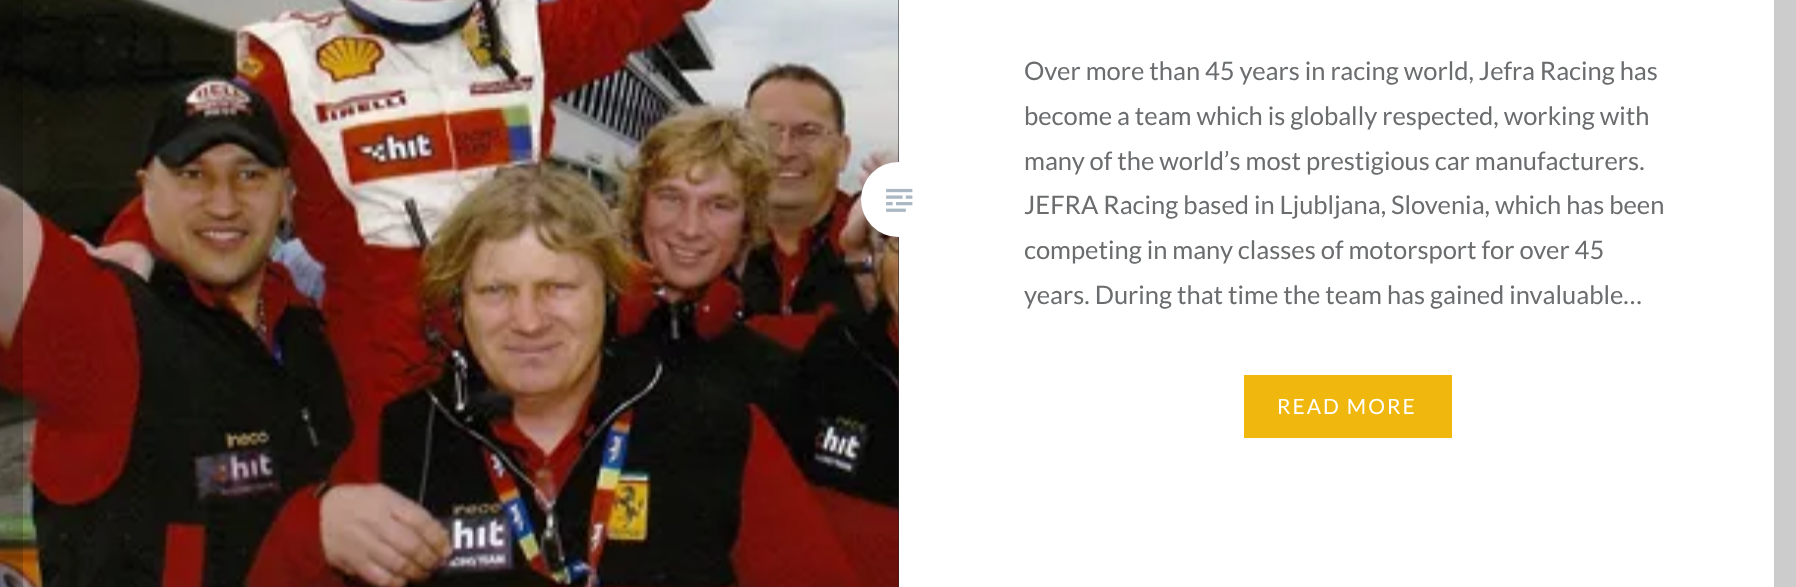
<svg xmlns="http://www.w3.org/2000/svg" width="1796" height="587">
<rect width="100%" height="100%" fill="#fff"/>
<rect x="898" width="1" height="587" fill="#242629"/>
<image x="0" y="0" width="899" height="587" href="media/1.png"/>
<circle cx="898.5" cy="199.5" r="37.5" fill="#fff"/>
<rect x="1244" y="375" width="208" height="63" fill="#f0b80e"/>
<image x="886" y="188" width="27" height="24" href="media/2.png"/>
<rect x="11.5" y="-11.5" width="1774" height="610" fill="none" stroke="#00000033" stroke-width="23"/>
<text x="1024" y="80" style="font-family:Lato;font-size:25.5px;fill:#6a6c6e">Over more than 45 years in racing world, Jefra Racing has</text>
<text x="1024" y="125" style="font-family:Lato;font-size:25.5px;fill:#6a6c6e">become a team which is globally respected, working with</text>
<text x="1024" y="170" style="font-family:Lato;font-size:25.5px;fill:#6a6c6e">many of the world’s most prestigious car manufacturers.</text>
<text x="1024" y="214" style="font-family:Lato;font-size:25.5px;fill:#6a6c6e">JEFRA Racing based in Ljubljana, Slovenia, which has been</text>
<text x="1024" y="259" style="font-family:Lato;font-size:25.5px;fill:#6a6c6e">competing in many classes of motorsport for over 45</text>
<text x="1024" y="304" style="font-family:Lato;font-size:25.5px;fill:#6a6c6e">years. During that time the team has gained invaluable…</text>
<text x="1277" y="414" style="font-family:Lato;font-size:21px;letter-spacing:2px;fill:#fff">READ MORE</text>
</svg>
